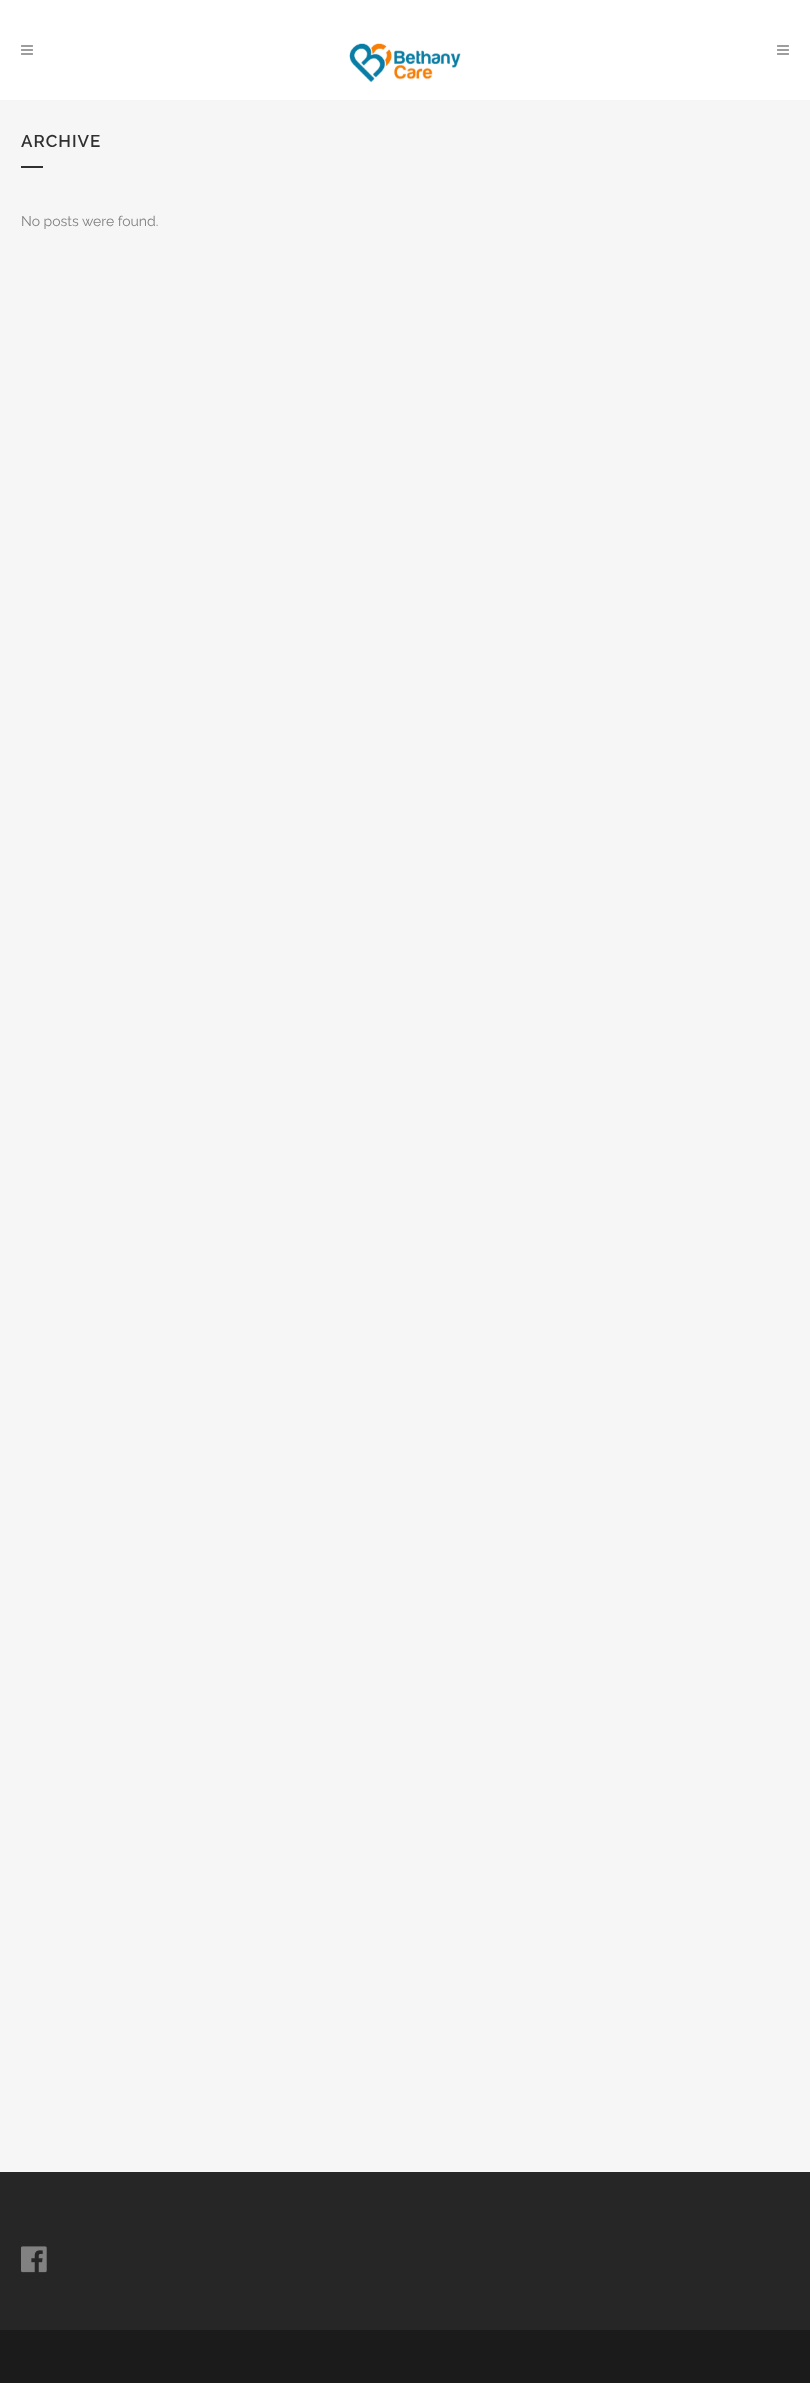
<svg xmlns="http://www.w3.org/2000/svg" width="810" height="2383">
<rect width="100%" height="100%" fill="#f6f6f6"/>
<rect width="810" height="100" fill="#fff"/>
<image x="21" y="45" width="12" height="10" href="media/1.png"/>
<image x="349" y="43" width="112" height="40" href="media/2.png"/>
<image x="777" y="45" width="12" height="10" href="media/1.png"/>
<text x="21" y="147" style="font-family:'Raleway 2';font-size:17px;font-weight:100;letter-spacing:1px;fill:#303030">ARCHIVE</text>
<rect x="21" y="166" width="22" height="2" fill="#303030"/>
<text x="21" y="226" style="font-family:Raleway;font-size:14px;font-weight:100;fill:#818181">No posts were found.</text>
<rect y="2172" width="810" height="158" fill="#262626"/>
<image x="21" y="2246" width="26" height="27" href="media/3.png"/>
<rect y="2330" width="810" height="53" fill="#1b1b1b"/>
</svg>
